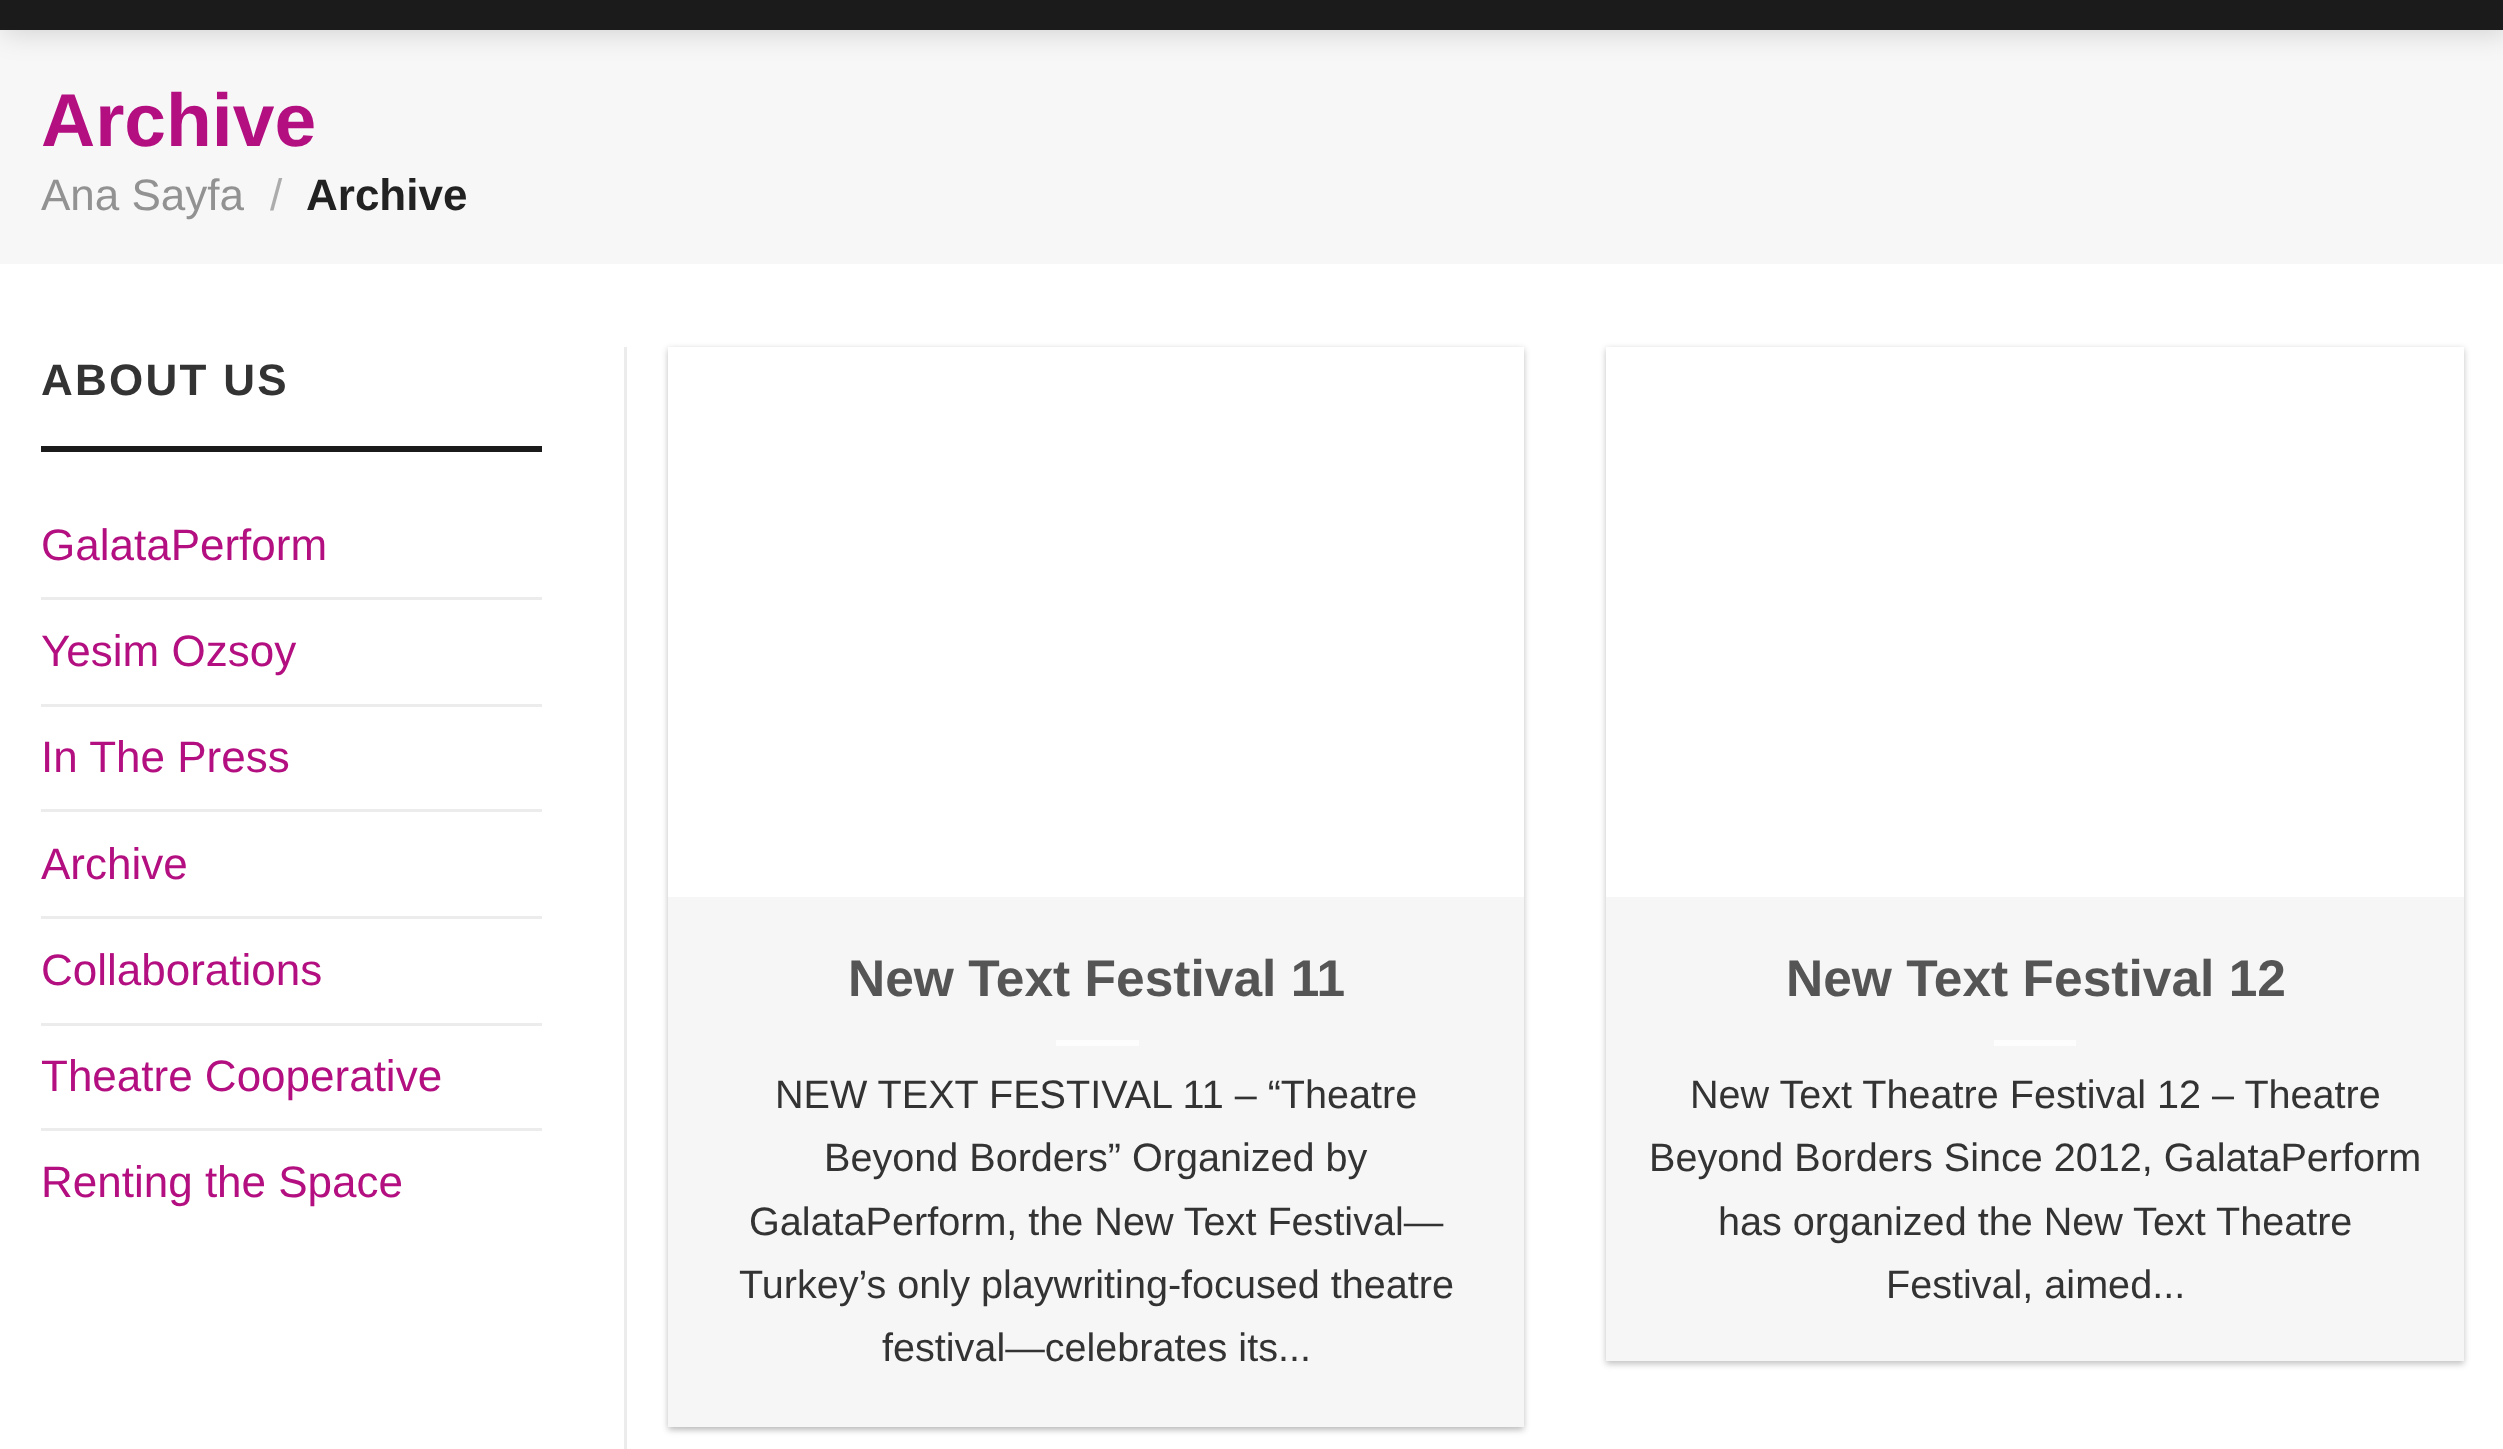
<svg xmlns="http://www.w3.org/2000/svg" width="2503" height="1449">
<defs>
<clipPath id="clip1"><path d="M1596 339h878v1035h-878zm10 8h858v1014h-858z" clip-rule="evenodd"/></clipPath>
</defs>
<rect width="100%" height="100%" fill="#fff"/>
<rect y="30" width="2503" height="234" fill="#f7f7f7"/>
<rect x="3" y="-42" width="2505" height="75" fill="#00000026" filter="blur(14px)"/>
<rect width="2503" height="30" fill="#1b1b1b"/>
<text x="41" y="146" style="font-family:Liberation Sans;font-size:75px;font-weight:bold;fill:#b30f80">Archive</text>
<text x="41" y="210" style="font-family:Liberation Sans;font-size:44px;fill:#929292">Ana Sayfa</text>
<text x="270" y="210" style="font-family:Liberation Sans;font-size:44px;fill:#acacac">/</text>
<text x="306" y="210" style="font-family:Liberation Sans;font-size:44px;font-weight:bold;fill:#222">Archive</text>
<rect x="624" y="347" width="3" height="1102" fill="#ececec"/>
<text x="41" y="395" style="font-family:Liberation Sans;font-size:44px;font-weight:bold;letter-spacing:2.25px;fill:#333">ABOUT US</text>
<rect x="41" y="446" width="501" height="6" fill="#1b1b1b"/>
<text x="41" y="560" style="font-family:Liberation Sans;font-size:44px;fill:#b30f80">GalataPerform</text>
<rect x="41" y="597" width="501" height="3" fill="#ececec"/>
<text x="41" y="666" style="font-family:Liberation Sans;font-size:44px;fill:#b30f80">Yesim Ozsoy</text>
<rect x="41" y="704" width="501" height="3" fill="#ececec"/>
<text x="41" y="772" style="font-family:Liberation Sans;font-size:44px;fill:#b30f80">In The Press</text>
<rect x="41" y="809" width="501" height="3" fill="#ececec"/>
<text x="41" y="879" style="font-family:Liberation Sans;font-size:44px;fill:#b30f80">Archive</text>
<rect x="41" y="916" width="501" height="3" fill="#ececec"/>
<text x="41" y="985" style="font-family:Liberation Sans;font-size:44px;fill:#b30f80">Collaborations</text>
<rect x="41" y="1023" width="501" height="3" fill="#ececec"/>
<text x="41" y="1091" style="font-family:Liberation Sans;font-size:44px;fill:#b30f80">Theatre Cooperative</text>
<rect x="41" y="1128" width="501" height="3" fill="#ececec"/>
<text x="41" y="1197" style="font-family:Liberation Sans;font-size:44px;fill:#b30f80">Renting the Space</text>
<rect x="668" y="349" width="856" height="1081" fill="#0000003d" filter="blur(3px)"/>
<rect x="674" y="355" width="844" height="1070" fill="#0000001f" filter="blur(4px)"/>
<rect x="668" y="347" width="856" height="550" fill="#fff"/>
<rect x="668" y="897" width="856" height="530" fill="#f6f6f6"/>
<text x="848" y="996" style="font-family:Liberation Sans;font-size:51.5px;font-weight:bold;fill:#555">New Text Festival 11</text>
<rect x="1056" y="1040" width="83" height="6" fill="#fdfdfd"/>
<text x="775" y="1108" style="font-family:Liberation Sans;font-size:39.6px;fill:#333">NEW TEXT FESTIVAL 11 – “Theatre</text>
<text x="824" y="1171" style="font-family:Liberation Sans;font-size:39.6px;fill:#333">Beyond Borders” Organized by</text>
<text x="749" y="1235" style="font-family:Liberation Sans;font-size:39.6px;fill:#333">GalataPerform, the New Text Festival—</text>
<text x="739" y="1298" style="font-family:Liberation Sans;font-size:39.6px;fill:#333">Turkey’s only playwriting-focused theatre</text>
<text x="882" y="1361" style="font-family:Liberation Sans;font-size:39.6px;fill:#333">festival—celebrates its...</text>
<g clip-path="url(#clip1)">
<rect x="1606" y="349" width="858" height="1015" fill="#0000003d" filter="blur(3px)"/>
</g>
<rect x="1606" y="897" width="858" height="464" fill="#f6f6f6"/>
<text x="1786" y="996" style="font-family:Liberation Sans;font-size:51.5px;font-weight:bold;fill:#555">New Text Festival 12</text>
<rect x="1994" y="1040" width="82" height="6" fill="#fdfdfd"/>
<text x="1690" y="1108" style="font-family:Liberation Sans;font-size:39.6px;fill:#333">New Text Theatre Festival 12 – Theatre</text>
<text x="1649" y="1171" style="font-family:Liberation Sans;font-size:39.6px;fill:#333">Beyond Borders Since 2012, GalataPerform</text>
<text x="1718" y="1235" style="font-family:Liberation Sans;font-size:39.6px;fill:#333">has organized the New Text Theatre</text>
<text x="1886" y="1298" style="font-family:Liberation Sans;font-size:39.6px;fill:#333">Festival, aimed...</text>
</svg>
